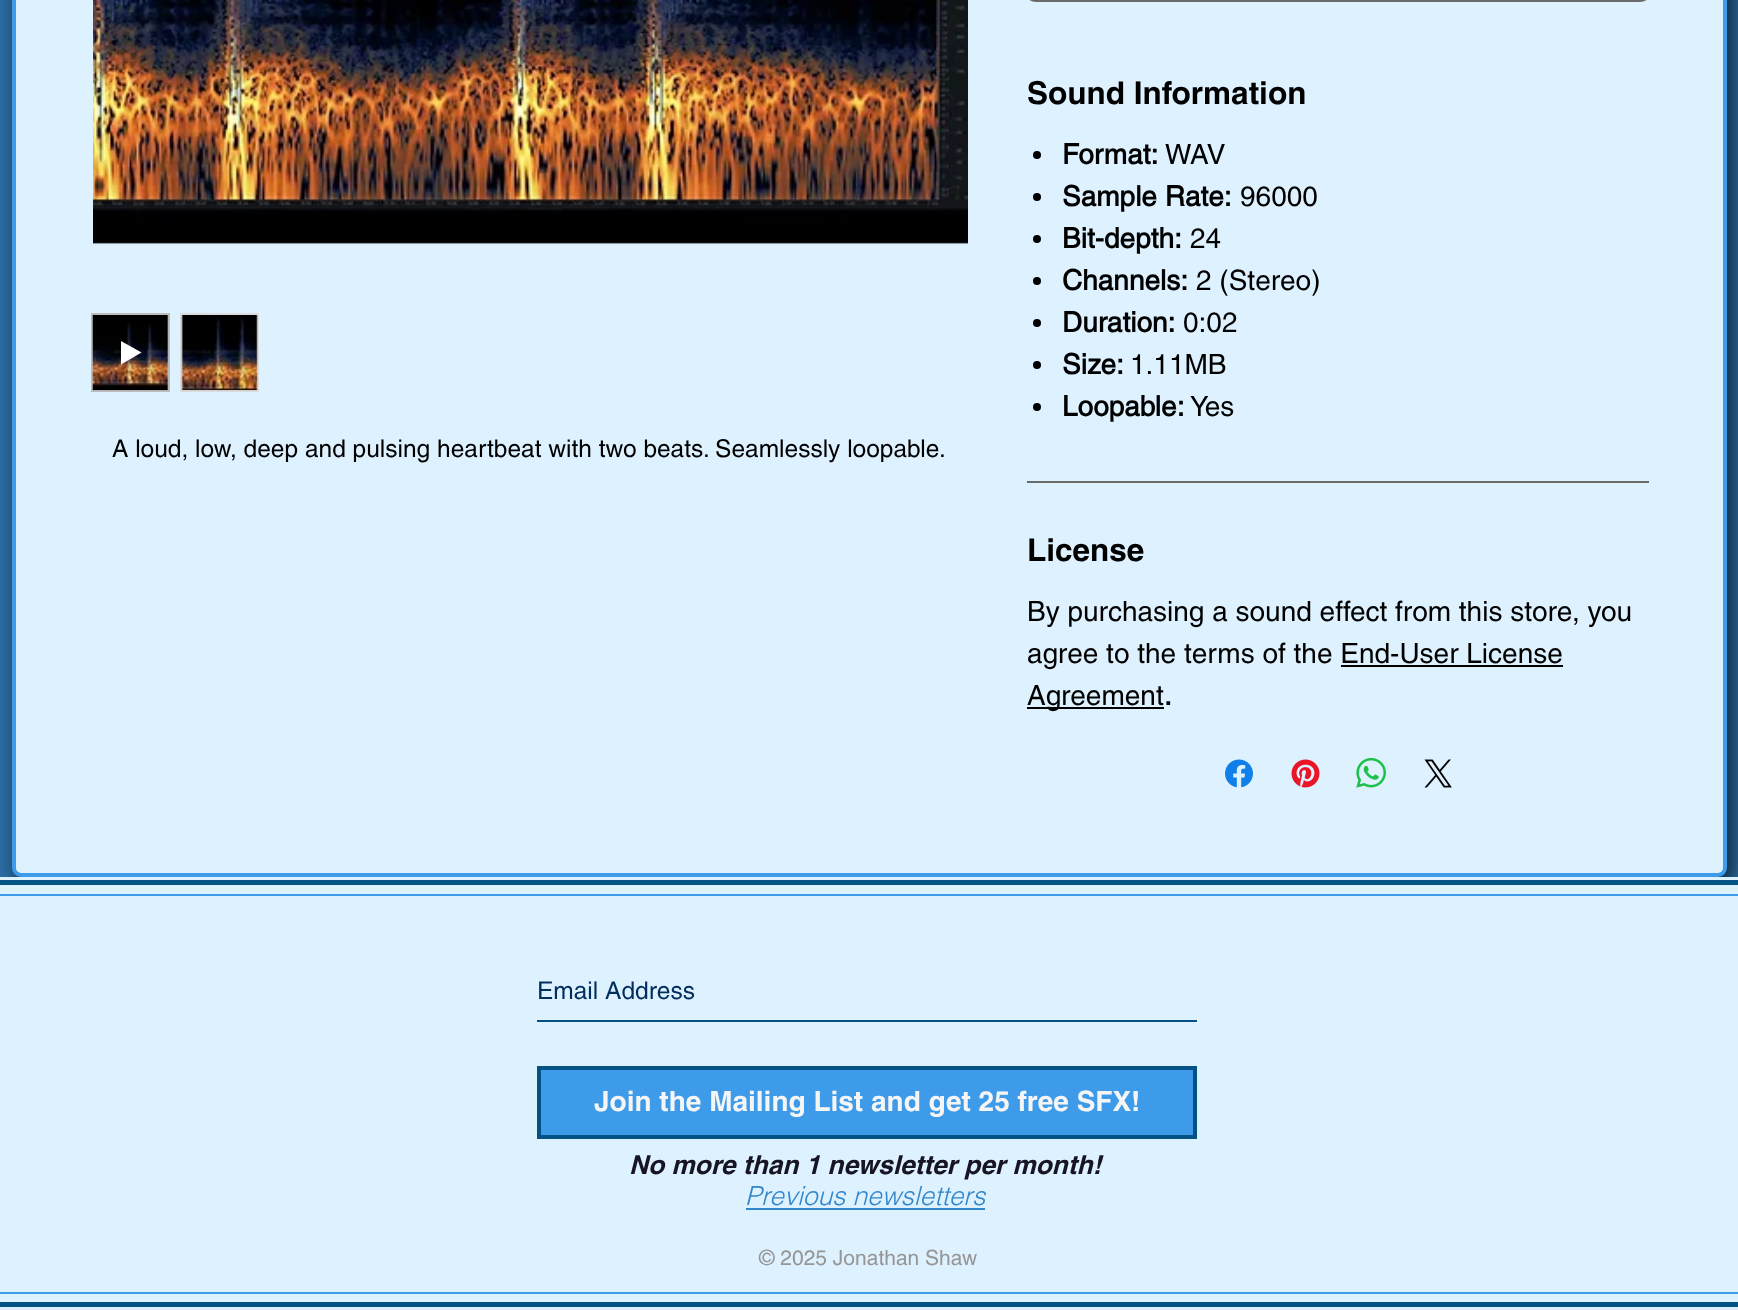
<svg xmlns="http://www.w3.org/2000/svg" width="1738" height="1310">
<rect width="100%" height="100%" fill="#2b6ca3"/>
<rect x="16" y="-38" width="1718" height="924" rx="11" fill="#00000099" filter="blur(9px)"/>
<rect x="14" y="-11" width="1711" height="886" rx="7" fill="#def1ff" stroke="#3d9be9" stroke-width="4"/>
<image x="93" y="0" width="875" height="244" href="media/1.png"/>
<rect x="92" y="314" width="77" height="77" fill="none" stroke="#bdbdbd" stroke-width="2"/>
<image x="92" y="315" width="77" height="76" href="media/2.png"/>
<path d="M121 341v23.5l20.5-12z" fill="#fff"/>
<rect x="180" y="313" width="79" height="79" fill="#dcdcdc"/>
<image x="181" y="315" width="77" height="76" href="media/3.png"/>
<text x="112" y="457" style="font-family:helvetica;font-size:24.5px;fill:#000">A loud, low, deep and pulsing heartbeat with two beats. Seamlessly loopable.</text>
<rect x="1028" y="-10" width="620" height="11" rx="8" fill="none" stroke="#6b6b6b" stroke-width="2"/>
<rect x="1027" y="481" width="622" height="2" fill="#6b6b6b"/>
<text x="1027" y="104" style="font-family:helvetica;font-size:31.5px;font-weight:bold;fill:#000">Sound Information</text>
<circle cx="1037" cy="155" r="4" fill="#000"/>
<text x="1062" y="164" style="font-family:'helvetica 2';font-size:28px;font-weight:bold;fill:#000">Format:</text>
<text x="1165" y="164" style="font-family:helvetica;font-size:28px;fill:#000">WAV</text>
<circle cx="1037" cy="197" r="4" fill="#000"/>
<text x="1062" y="206" style="font-family:'helvetica 2';font-size:28px;font-weight:bold;fill:#000">Sample Rate:</text>
<text x="1240" y="206" style="font-family:helvetica;font-size:28px;fill:#000">96000</text>
<circle cx="1037" cy="239" r="4" fill="#000"/>
<text x="1062" y="248" style="font-family:'helvetica 2';font-size:28px;font-weight:bold;fill:#000">Bit-depth:</text>
<text x="1190" y="248" style="font-family:helvetica;font-size:28px;fill:#000">24</text>
<circle cx="1037" cy="281" r="4" fill="#000"/>
<text x="1062" y="290" style="font-family:'helvetica 2';font-size:28px;font-weight:bold;fill:#000">Channels:</text>
<text x="1196" y="290" style="font-family:helvetica;font-size:28px;fill:#000">2 (Stereo)</text>
<circle cx="1037" cy="323" r="4" fill="#000"/>
<text x="1062" y="332" style="font-family:'helvetica 2';font-size:28px;font-weight:bold;fill:#000">Duration:</text>
<text x="1183" y="332" style="font-family:helvetica;font-size:28px;fill:#000">0:02</text>
<circle cx="1037" cy="365" r="4" fill="#000"/>
<text x="1062" y="374" style="font-family:'helvetica 2';font-size:28px;font-weight:bold;fill:#000">Size:</text>
<text x="1130" y="374" style="font-family:helvetica;font-size:28px;fill:#000">1.11MB</text>
<circle cx="1037" cy="407" r="4" fill="#000"/>
<text x="1062" y="416" style="font-family:'helvetica 2';font-size:28px;font-weight:bold;fill:#000">Loopable:</text>
<text x="1190" y="416" style="font-family:helvetica;font-size:28px;fill:#000">Yes</text>
<text x="1027" y="561" style="font-family:helvetica;font-size:31.5px;font-weight:bold;fill:#000">License</text>
<text x="1027" y="621" style="font-family:helvetica;font-size:28px;fill:#000">By purchasing a sound effect from this store, you</text>
<text x="1027" y="663" style="font-family:helvetica;font-size:28px;fill:#000">agree to the terms of the End-User License</text>
<rect x="1027" y="707" width="137" height="2" fill="#000"/>
<text x="1027" y="705" style="font-family:helvetica;font-size:28px;fill:#000">Agreement</text>
<rect x="1341" y="665" width="222" height="2" fill="#000"/>
<text x="1164" y="705" style="font-family:'helvetica 2';font-size:28px;font-weight:bold;fill:#000">.</text>
<image x="1225" y="759" width="28" height="29" href="media/4.png"/>
<image x="1291" y="759" width="29" height="29" href="media/5.png"/>
<image x="1356" y="757" width="30" height="31" href="media/6.png"/>
<image x="1424" y="759" width="28" height="29" href="media/7.png"/>
<rect y="877" width="1738" height="433" fill="#def1ff"/>
<rect y="880" width="1738" height="5" fill="#045184"/>
<rect y="1302" width="1738" height="5" fill="#045184"/>
<rect y="894" width="1738" height="2" fill="#3d9be9"/>
<rect y="1292" width="1738" height="2" fill="#3d9be9"/>
<rect x="537" y="1020" width="660" height="2" fill="#045184"/>
<text x="537" y="999" style="font-family:helvetica;font-size:24.5px;fill:#002e5d">Email Address</text>
<rect x="539" y="1068" width="656" height="69" fill="#3d9be9" stroke="#045184" stroke-width="4"/>
<text x="594" y="1111" style="font-family:helvetica;font-size:28px;font-weight:bold;fill:#f5f5f5">Join the Mailing List and get 25 free SFX!</text>
<text x="629" y="1174" style="font-family:helvetica;font-size:26.25px;font-weight:bold;font-style:italic;fill:#171424">No more than 1 newsletter per month!</text>
<text x="745" y="1205" style="font-family:helvetica;font-size:26.25px;font-weight:300;font-style:italic;fill:#3186cc">Previous newsletters</text>
<rect x="746" y="1208" width="239" height="2" fill="#3186cc"/>
<text x="759" y="1265" style="font-family:helvetica;font-size:21px;fill:#969696">© 2025 Jonathan Shaw</text>
</svg>
